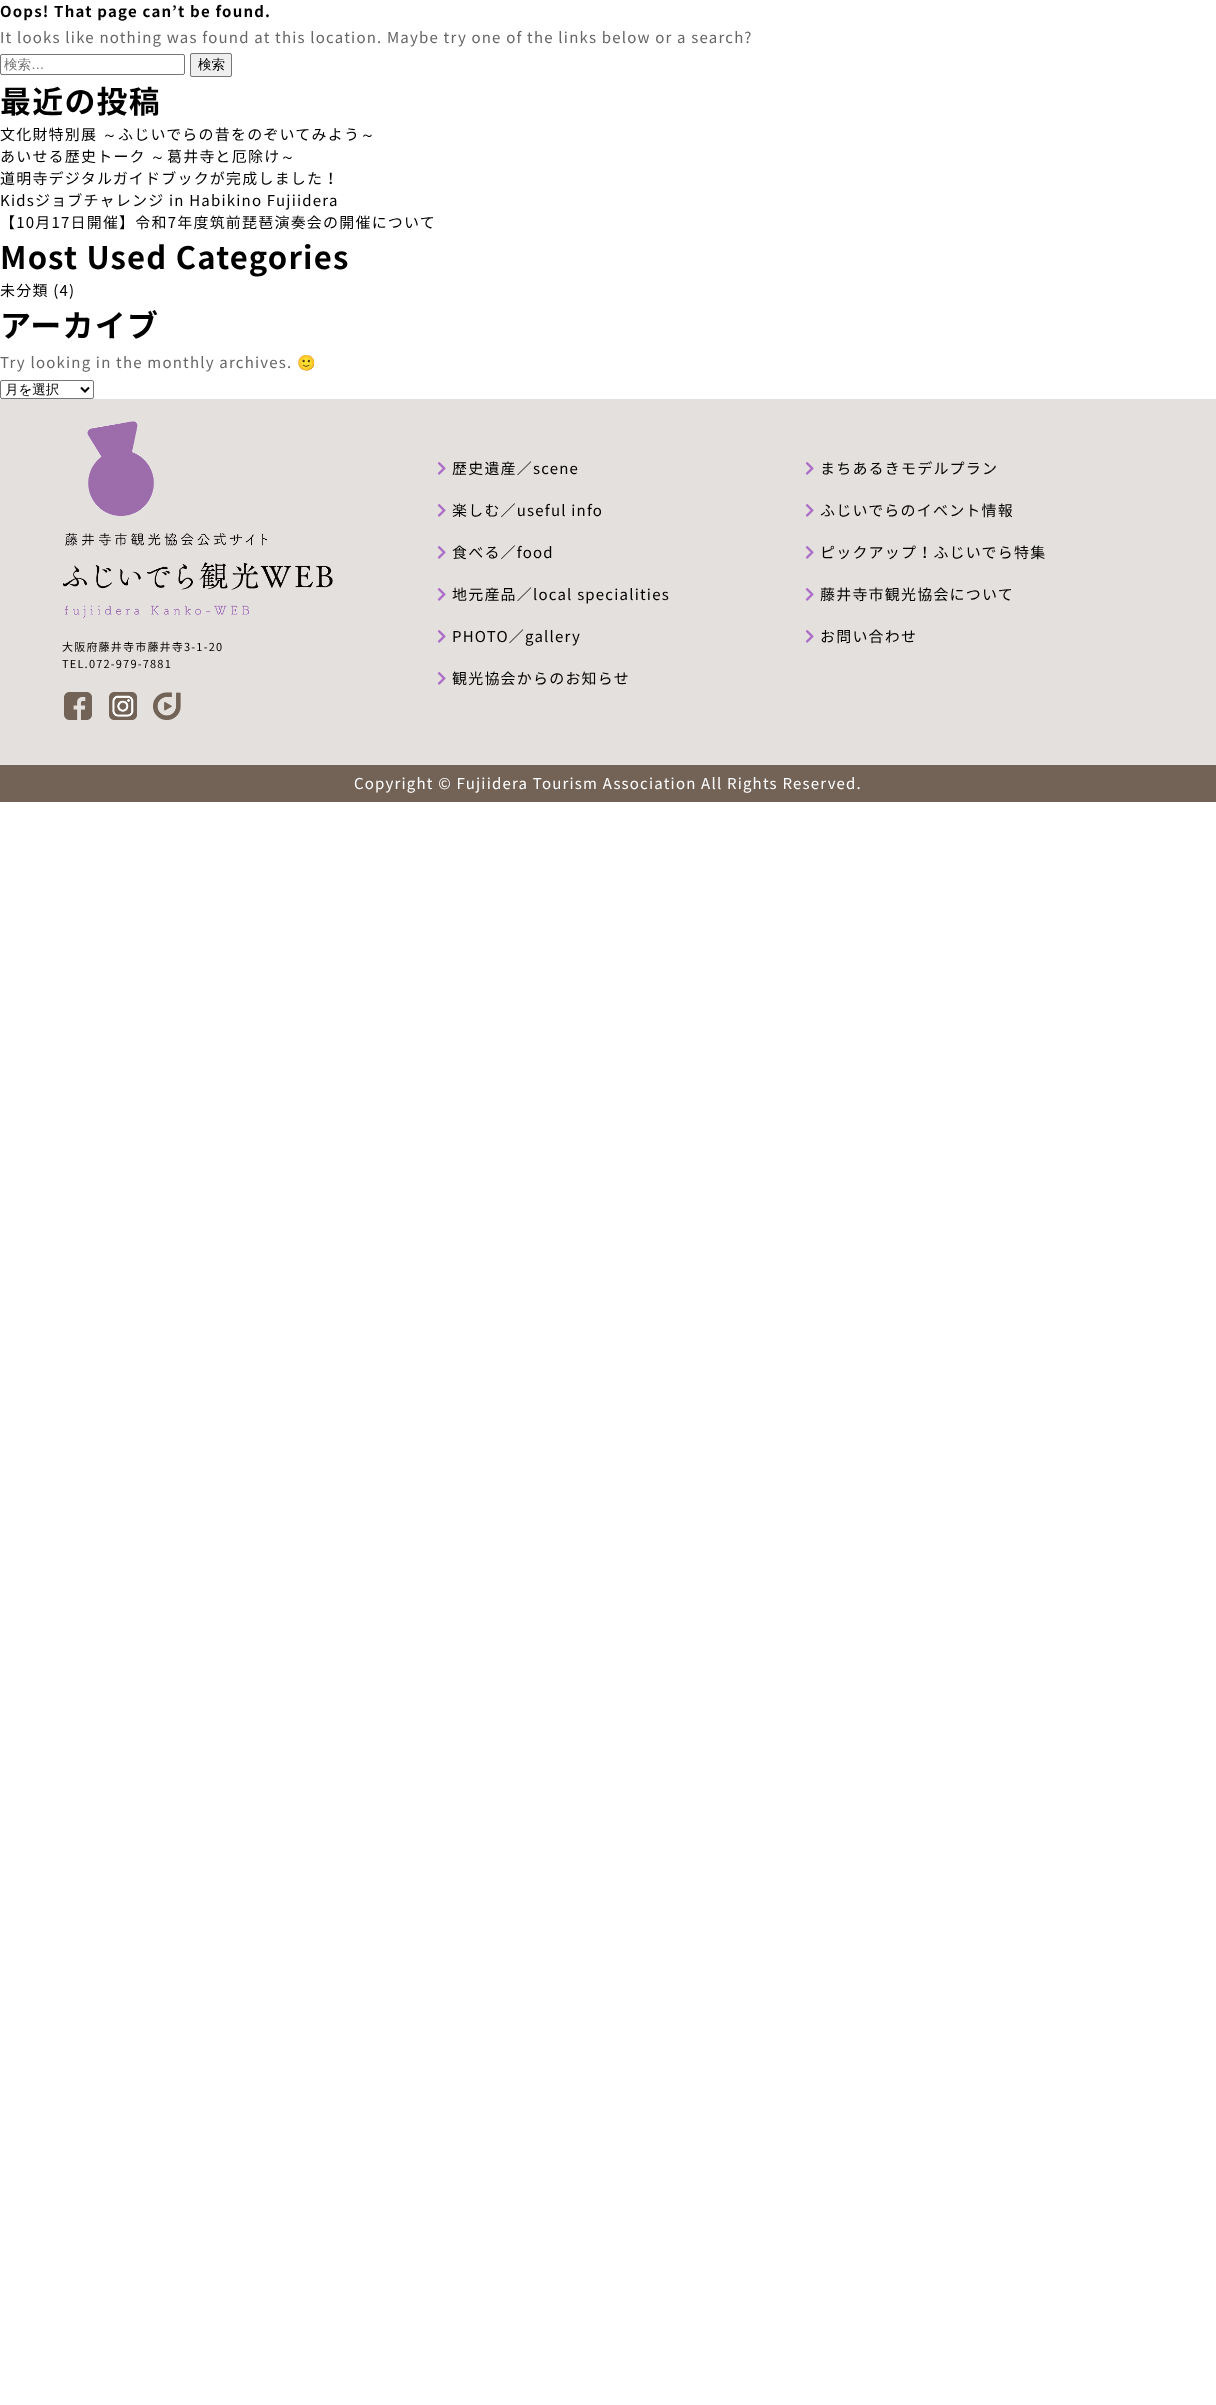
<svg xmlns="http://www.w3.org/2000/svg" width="1216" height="2405">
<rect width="100%" height="100%" fill="#fff"/>
<text x="0" y="17" style="font-family:Noto Sans JP;font-size:15px;font-weight:bold;letter-spacing:1.2px;fill:#000">Oops! That page can’t be found.</text>
<text x="0" y="43" style="font-family:Noto Sans JP;font-size:15px;letter-spacing:1.2px;fill:#666">It looks like nothing was found at this location. Maybe try one of the links below or a search?</text>
<rect x="0.5" y="54.5" width="184" height="20" rx="1.5" fill="none" stroke="#767676"/>
<text x="4" y="69" style="font-family:WenQuanYi Zen Hei;font-size:13.5px;font-weight:500;fill:#757575">検索</text>
<text x="31" y="69" style="font-family:Liberation Sans;font-size:13.5px;fill:#757575">…</text>
<rect x="190.5" y="53.5" width="41" height="23" rx="1.5" fill="#efefef" stroke="#767676"/>
<text x="198" y="69" style="font-family:WenQuanYi Zen Hei;font-size:13.5px;font-weight:500;fill:#000">検索</text>
<text x="0" y="113" style="font-family:Noto Sans JP;font-size:31px;font-weight:bold;letter-spacing:1.2px;fill:#000">最近の投稿</text>
<text x="0" y="140" style="font-family:Noto Sans JP;font-size:15px;letter-spacing:1.2px;fill:#000">文化財特別展</text>
<text x="102" y="140" style="font-family:WenQuanYi Zen Hei;font-size:15px;font-weight:500;letter-spacing:1.2px;fill:#000">～</text>
<text x="118" y="140" style="font-family:Noto Sans JP;font-size:15px;letter-spacing:1.2px;fill:#000">ふじいでらの昔をのぞいてみよう</text>
<text x="360" y="140" style="font-family:WenQuanYi Zen Hei;font-size:15px;font-weight:500;letter-spacing:1.2px;fill:#000">～</text>
<text x="0" y="162" style="font-family:Noto Sans JP;font-size:15px;letter-spacing:1.2px;fill:#000">あいせる歴史トーク</text>
<text x="150" y="162" style="font-family:WenQuanYi Zen Hei;font-size:15px;font-weight:500;letter-spacing:1.2px;fill:#000">～</text>
<text x="167" y="162" style="font-family:Noto Sans JP;font-size:15px;letter-spacing:1.2px;fill:#000">葛井寺と厄除け</text>
<text x="280" y="162" style="font-family:WenQuanYi Zen Hei;font-size:15px;font-weight:500;letter-spacing:1.2px;fill:#000">～</text>
<text x="0" y="184" style="font-family:Noto Sans JP;font-size:15px;letter-spacing:1.2px;fill:#000">道明寺デジタルガイドブックが完成しました！</text>
<text x="0" y="206" style="font-family:Noto Sans JP;font-size:15px;letter-spacing:1.2px;fill:#000">Kidsジョブチャレンジ in Habikino Fujiidera</text>
<text x="0" y="228" style="font-family:Noto Sans JP;font-size:15px;letter-spacing:1.2px;fill:#000">【10月17日開催】令和7年度筑前琵琶演奏会の開催について</text>
<text x="0" y="269" style="font-family:Noto Sans JP;font-size:31px;font-weight:bold;letter-spacing:1.2px;fill:#000">Most Used Categories</text>
<text x="0" y="296" style="font-family:Noto Sans JP;font-size:15px;letter-spacing:1.2px;fill:#000">未分類 (4)</text>
<text x="0" y="337" style="font-family:Noto Sans JP;font-size:31px;font-weight:bold;letter-spacing:1.2px;fill:#000">アーカイブ</text>
<text x="0" y="368" style="font-family:Noto Sans JP;font-size:15px;letter-spacing:1.2px;fill:#666">Try looking in the monthly archives.</text>
<text x="297" y="368" style="font-family:Noto Color Emoji;font-size:15px;letter-spacing:1.2px;fill:#666">🙂</text>
<rect x="0.5" y="380.5" width="93" height="18" rx="1.5" fill="none" stroke="#767676"/>
<path d="M81 387.5l4 4l4-4" fill="none" stroke="#000" stroke-width="2"/>
<text x="5" y="394" style="font-family:WenQuanYi Zen Hei;font-size:13.5px;font-weight:500;fill:#000">月を選択</text>
<rect y="399" width="1216" height="366" fill="#e3e0dd"/>
<image x="437" y="462" width="9" height="13" href="media/1.png"/>
<text x="452" y="474" style="font-family:Noto Sans JP;font-size:15px;letter-spacing:1.2px;fill:#000">歴史遺産／scene</text>
<image x="437" y="504" width="9" height="13" href="media/1.png"/>
<text x="452" y="516" style="font-family:Noto Sans JP;font-size:15px;letter-spacing:1.2px;fill:#000">楽しむ／useful info</text>
<image x="437" y="546" width="9" height="13" href="media/1.png"/>
<text x="452" y="558" style="font-family:Noto Sans JP;font-size:15px;letter-spacing:1.2px;fill:#000">食べる／food</text>
<image x="437" y="588" width="9" height="13" href="media/1.png"/>
<text x="452" y="600" style="font-family:Noto Sans JP;font-size:15px;letter-spacing:1.2px;fill:#000">地元産品／local specialities</text>
<image x="437" y="630" width="9" height="13" href="media/1.png"/>
<text x="452" y="642" style="font-family:Noto Sans JP;font-size:15px;letter-spacing:1.2px;fill:#000">PHOTO／gallery</text>
<image x="437" y="672" width="9" height="13" href="media/1.png"/>
<text x="452" y="684" style="font-family:Noto Sans JP;font-size:15px;letter-spacing:1.2px;fill:#000">観光協会からのお知らせ</text>
<image x="805" y="462" width="9" height="13" href="media/1.png"/>
<text x="820" y="474" style="font-family:Noto Sans JP;font-size:15px;letter-spacing:1.2px;fill:#000">まちあるきモデルプラン</text>
<image x="805" y="504" width="9" height="13" href="media/1.png"/>
<text x="820" y="516" style="font-family:Noto Sans JP;font-size:15px;letter-spacing:1.2px;fill:#000">ふじいでらのイベント情報</text>
<image x="805" y="546" width="9" height="13" href="media/1.png"/>
<text x="820" y="558" style="font-family:Noto Sans JP;font-size:15px;letter-spacing:1.2px;fill:#000">ピックアップ！ふじいでら特集</text>
<image x="805" y="588" width="9" height="13" href="media/1.png"/>
<text x="820" y="600" style="font-family:Noto Sans JP;font-size:15px;letter-spacing:1.2px;fill:#000">藤井寺市観光協会について</text>
<image x="805" y="630" width="9" height="13" href="media/1.png"/>
<text x="820" y="642" style="font-family:Noto Sans JP;font-size:15px;letter-spacing:1.2px;fill:#000">お問い合わせ</text>
<image x="62" y="421" width="271" height="197" href="media/2.png"/>
<text x="62" y="651" style="font-family:Noto Sans JP;font-size:11px;letter-spacing:1.2px;fill:#000">大阪府藤井寺市藤井寺3-1-20</text>
<text x="62" y="668" style="font-family:Noto Sans JP;font-size:11px;letter-spacing:1.2px;fill:#000">TEL.072-979-7881</text>
<image x="64" y="692" width="28" height="28" href="media/3.png"/>
<image x="109" y="692" width="28" height="28" href="media/4.png"/>
<image x="153" y="692" width="28" height="28" href="media/5.png"/>
<rect y="765" width="1216" height="37" fill="#736357"/>
<text x="354" y="789" style="font-family:Noto Sans JP;font-size:15px;letter-spacing:1.2px;fill:#fff">Copyright © Fujiidera Tourism Association All Rights Reserved.</text>
</svg>
